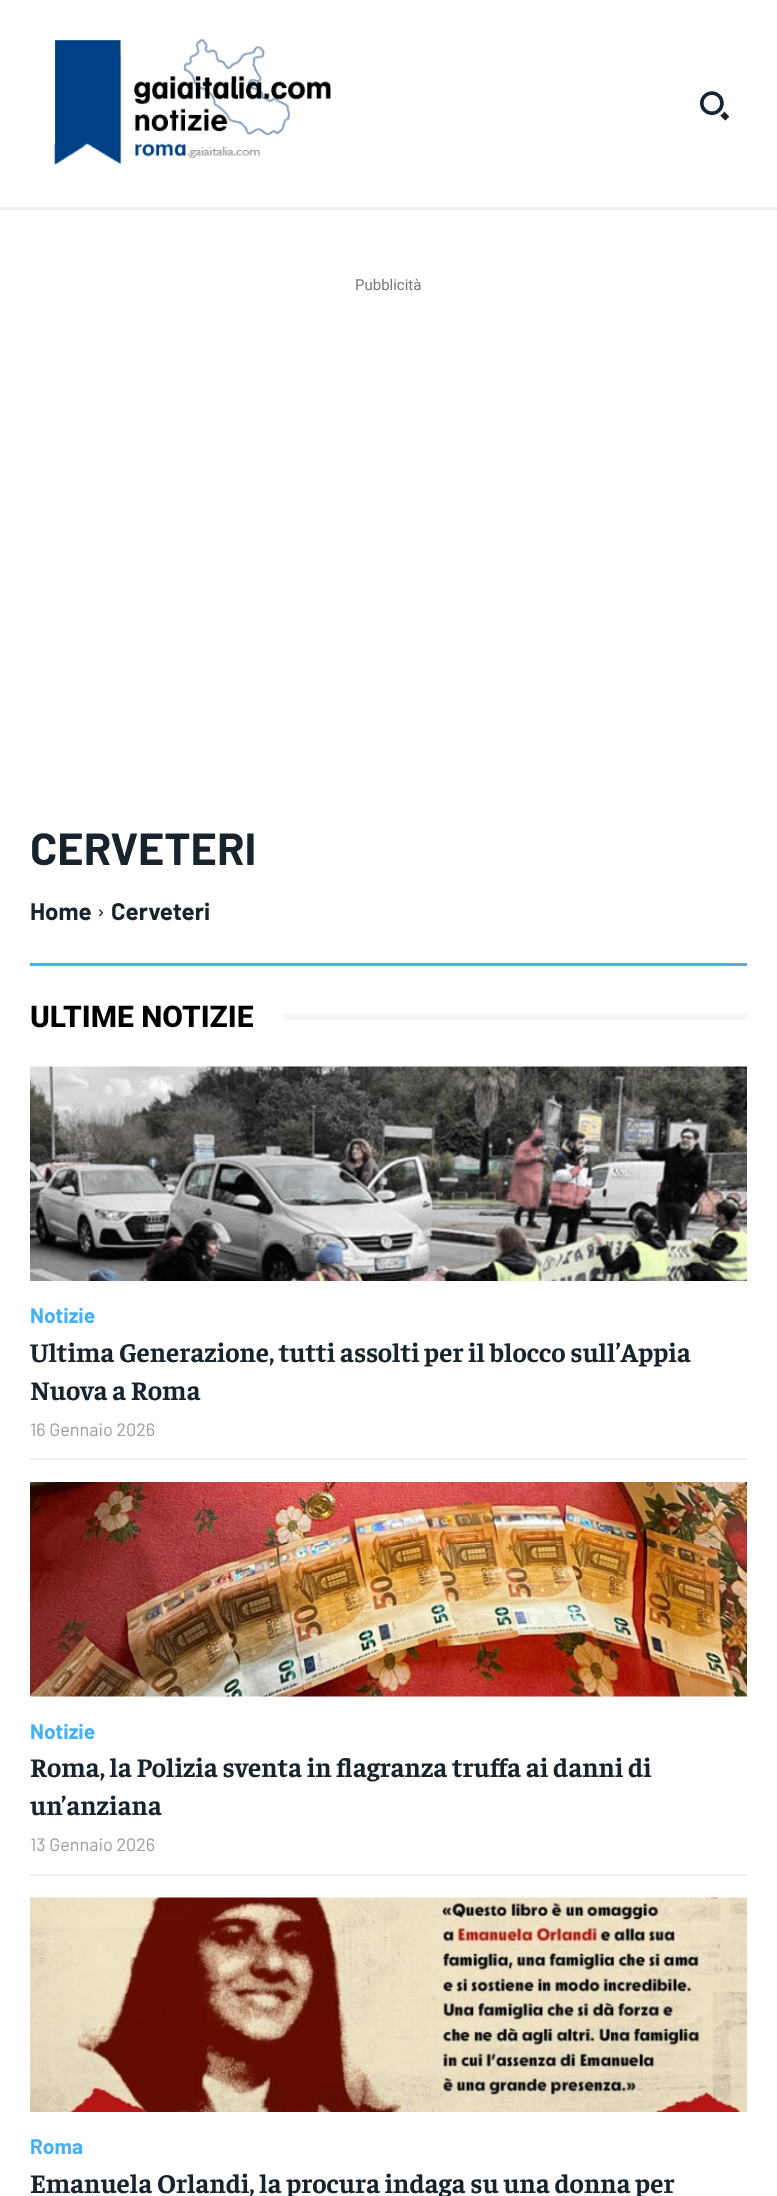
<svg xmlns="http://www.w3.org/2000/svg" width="777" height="2196">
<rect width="100%" height="100%" fill="#fff"/>
<image x="54" y="38" width="278" height="127" href="media/1.png"/>
<image x="700" y="91" width="30" height="30" href="media/2.png"/>
<rect y="207" width="777" height="3" fill="#edeeee"/>
<text x="355" y="290" style="font-family:Roboto;font-size:15px;fill:#767676">Pubblicità</text>
<text x="30" y="865" style="font-family:Barlow;font-size:45px;font-weight:bold;fill:#18242c">CERVETERI</text>
<text x="30" y="920" style="font-family:Barlow;font-size:24px;font-weight:bold;fill:#18242c">Home</text>
<image x="99" y="909" width="4" height="8" href="media/3.png"/>
<text x="111" y="920" style="font-family:Barlow;font-size:24px;font-weight:bold;fill:#18242c">Cerveteri</text>
<rect x="30" y="963" width="717" height="3" fill="#48b0f2"/>
<text x="30" y="1027" style="font-family:Roboto;font-size:30px;font-weight:800;fill:#000">ULTIME NOTIZIE</text>
<rect x="284" y="1014" width="463" height="6" fill="#f5f5f5"/>
<image x="30" y="1066" width="717" height="215" href="media/4.png"/>
<text x="30" y="1323" style="font-family:Barlow;font-size:21px;font-weight:bold;fill:#48b0f2">Notizie</text>
<text x="30" y="1362" style="font-family:Faustina;font-size:27px;font-weight:bold;fill:#18242c">Ultima Generazione, tutti assolti per il blocco sull’Appia</text>
<text x="30" y="1400" style="font-family:Faustina;font-size:27px;font-weight:bold;fill:#18242c">Nuova a Roma</text>
<text x="30" y="1436" style="font-family:Barlow;font-size:18px;fill:#969fa4">16 Gennaio 2026</text>
<rect x="30" y="1458" width="717" height="2" fill="#edeeee"/>
<image x="30" y="1482" width="717" height="215" href="media/5.png"/>
<text x="30" y="1739" style="font-family:Barlow;font-size:21px;font-weight:bold;fill:#48b0f2">Notizie</text>
<text x="30" y="1777" style="font-family:Faustina;font-size:27px;font-weight:bold;fill:#18242c">Roma, la Polizia sventa in flagranza truffa ai danni di</text>
<text x="30" y="1815" style="font-family:Faustina;font-size:27px;font-weight:bold;fill:#18242c">un’anziana</text>
<text x="30" y="1851" style="font-family:Barlow;font-size:18px;fill:#969fa4">13 Gennaio 2026</text>
<rect x="30" y="1874" width="717" height="2" fill="#edeeee"/>
<image x="30" y="1897" width="717" height="215" href="media/6.png"/>
<text x="30" y="2154" style="font-family:Barlow;font-size:21px;font-weight:bold;fill:#48b0f2">Roma</text>
<text x="30" y="2193" style="font-family:Faustina;font-size:27px;font-weight:bold;fill:#18242c">Emanuela Orlandi, la procura indaga su una donna per</text>
</svg>
